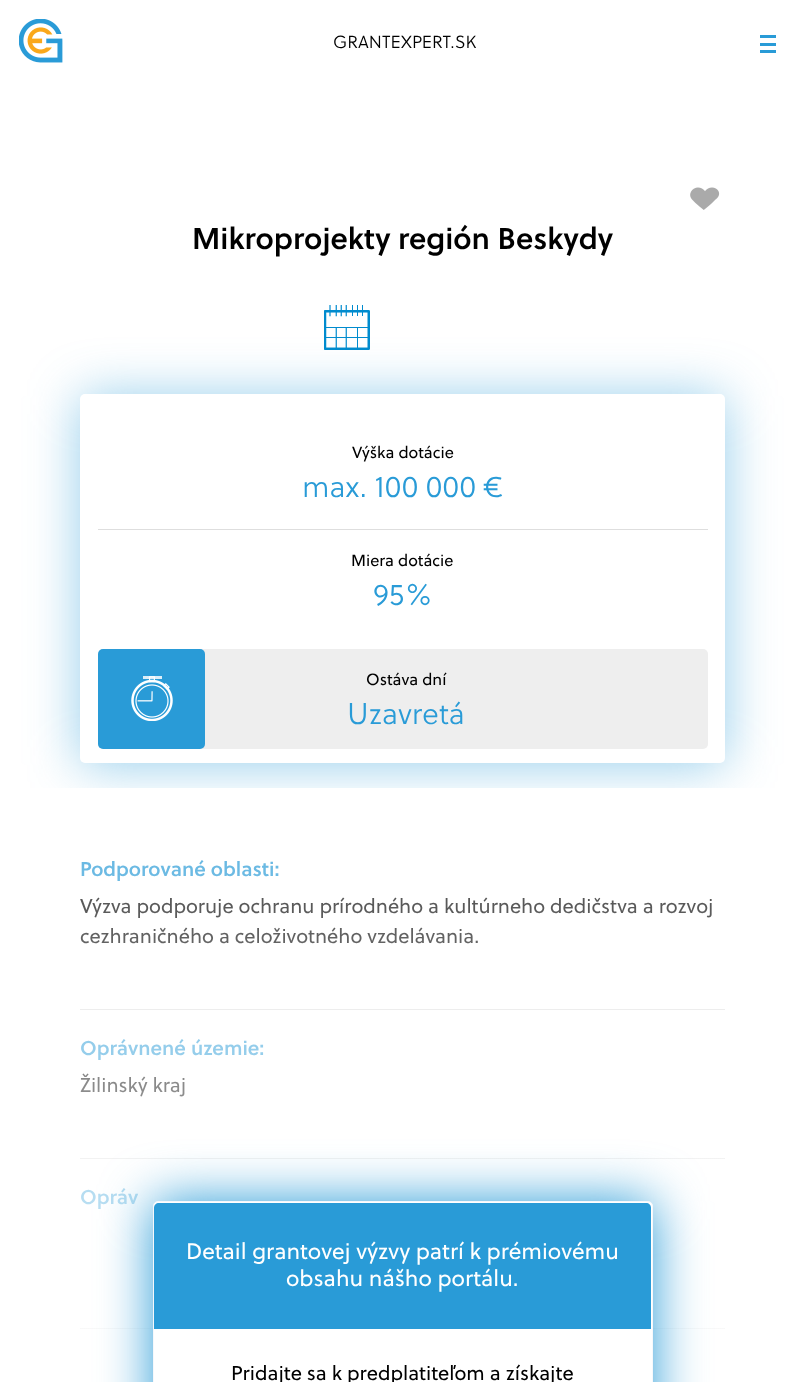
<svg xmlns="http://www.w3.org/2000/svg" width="805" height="1382">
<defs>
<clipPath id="clip1"><rect x="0" y="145" width="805" height="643"/></clipPath>
<linearGradient id="g1" gradientUnits="userSpaceOnUse" x1="402" y1="581" x2="403" y2="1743"><stop offset="0" stop-color="#fff" stop-opacity="0"/><stop offset="0.8" stop-color="#fff"/></linearGradient>
</defs>
<rect width="100%" height="100%" fill="#fff"/>
<image x="19" y="19" width="44" height="44" href="media/1.png"/>
<text x="333" y="48" style="font-family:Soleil;font-size:17.5px;font-weight:300;fill:#000">GRANTEXPERT.SK</text>
<rect x="760" y="35" width="16" height="3" fill="#299bd7"/>
<rect x="760" y="43" width="16" height="3" fill="#299bd7"/>
<rect x="760" y="50" width="16" height="3" fill="#299bd7"/>
<image x="690" y="187" width="30" height="23" href="media/2.png"/>
<text x="192" y="249" style="font-family:Soleil;font-size:30px;font-weight:600;fill:#000">Mikroprojekty región Beskydy</text>
<g clip-path="url(#clip1)">
<rect x="80" y="396" width="645" height="369" rx="5" fill="#299bd780" filter="blur(26px)"/>
</g>
<image x="324" y="305" width="46" height="45" href="media/3.png"/>
<rect x="80" y="394" width="645" height="369" rx="5" fill="#fff"/>
<text x="352" y="458" style="font-family:Soleil;font-size:16.25px;fill:#000">Výška dotácie</text>
<text x="302" y="497" style="font-family:Soleil;font-size:30px;font-weight:300;fill:#299bd7">max. 100 000 €</text>
<rect x="98" y="529" width="610" height="1" fill="#dedede"/>
<text x="351" y="566" style="font-family:Soleil;font-size:16.25px;fill:#000">Miera dotácie</text>
<text x="373" y="605" style="font-family:Soleil;font-size:30px;font-weight:300;fill:#299bd7">95%</text>
<rect x="98" y="649" width="610" height="100" rx="5" fill="#eee"/>
<rect x="98" y="649" width="107" height="100" rx="5" fill="#299bd7"/>
<image x="131" y="676" width="42" height="45" href="media/4.png"/>
<text x="366" y="685" style="font-family:Soleil;font-size:16.25px;fill:#000">Ostáva dní</text>
<text x="347" y="724" style="font-family:Soleil;font-size:30px;font-weight:300;fill:#299bd7">Uzavretá</text>
<text x="80" y="876" style="font-family:Soleil;font-size:20px;font-weight:600;fill:#299bd7">Podporované oblasti:</text>
<text x="80" y="913" style="font-family:Soleil;font-size:20px;fill:#000">Výzva podporuje ochranu prírodného a kultúrneho dedičstva a rozvoj</text>
<text x="80" y="943" style="font-family:Soleil;font-size:20px;fill:#000">cezhraničného a celoživotného vzdelávania.</text>
<rect x="80" y="1009" width="645" height="1" fill="#dedede"/>
<text x="80" y="1055" style="font-family:Soleil;font-size:20px;font-weight:600;fill:#299bd7">Oprávnené územie:</text>
<text x="80" y="1092" style="font-family:Soleil;font-size:20px;fill:#000">Žilinský kraj</text>
<rect x="80" y="1158" width="645" height="1" fill="#dedede"/>
<text x="80" y="1204" style="font-family:Soleil;font-size:20px;font-weight:600;fill:#299bd7">Opráv</text>
<rect x="80" y="1328" width="645" height="1" fill="#dedede"/>
<rect x="80" y="860" width="645" height="469" fill="url(#g1)"/>
<rect x="153" y="1201" width="500" height="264" rx="5" fill="#299bd7" filter="blur(26px)"/>
<rect x="153.5" y="1201.5" width="499" height="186" rx="4.5" fill="#fff" stroke="#f6f8fb"/>
<path d="M159 1203h487c3 0 5 2 5 5v121h-497v-121c0-3 2-5 5-5z" fill="#299bd7"/>
<text x="186" y="1259" style="font-family:Soleil;font-size:22.5px;fill:#fff">Detail grantovej výzvy patrí k prémiovému</text>
<text x="286" y="1286" style="font-family:Soleil;font-size:22.5px;fill:#fff">obsahu nášho portálu.</text>
<text x="231" y="1380" style="font-family:Soleil;font-size:20px;fill:#000">Pridajte sa k predplatiteľom a získajte</text>
</svg>
